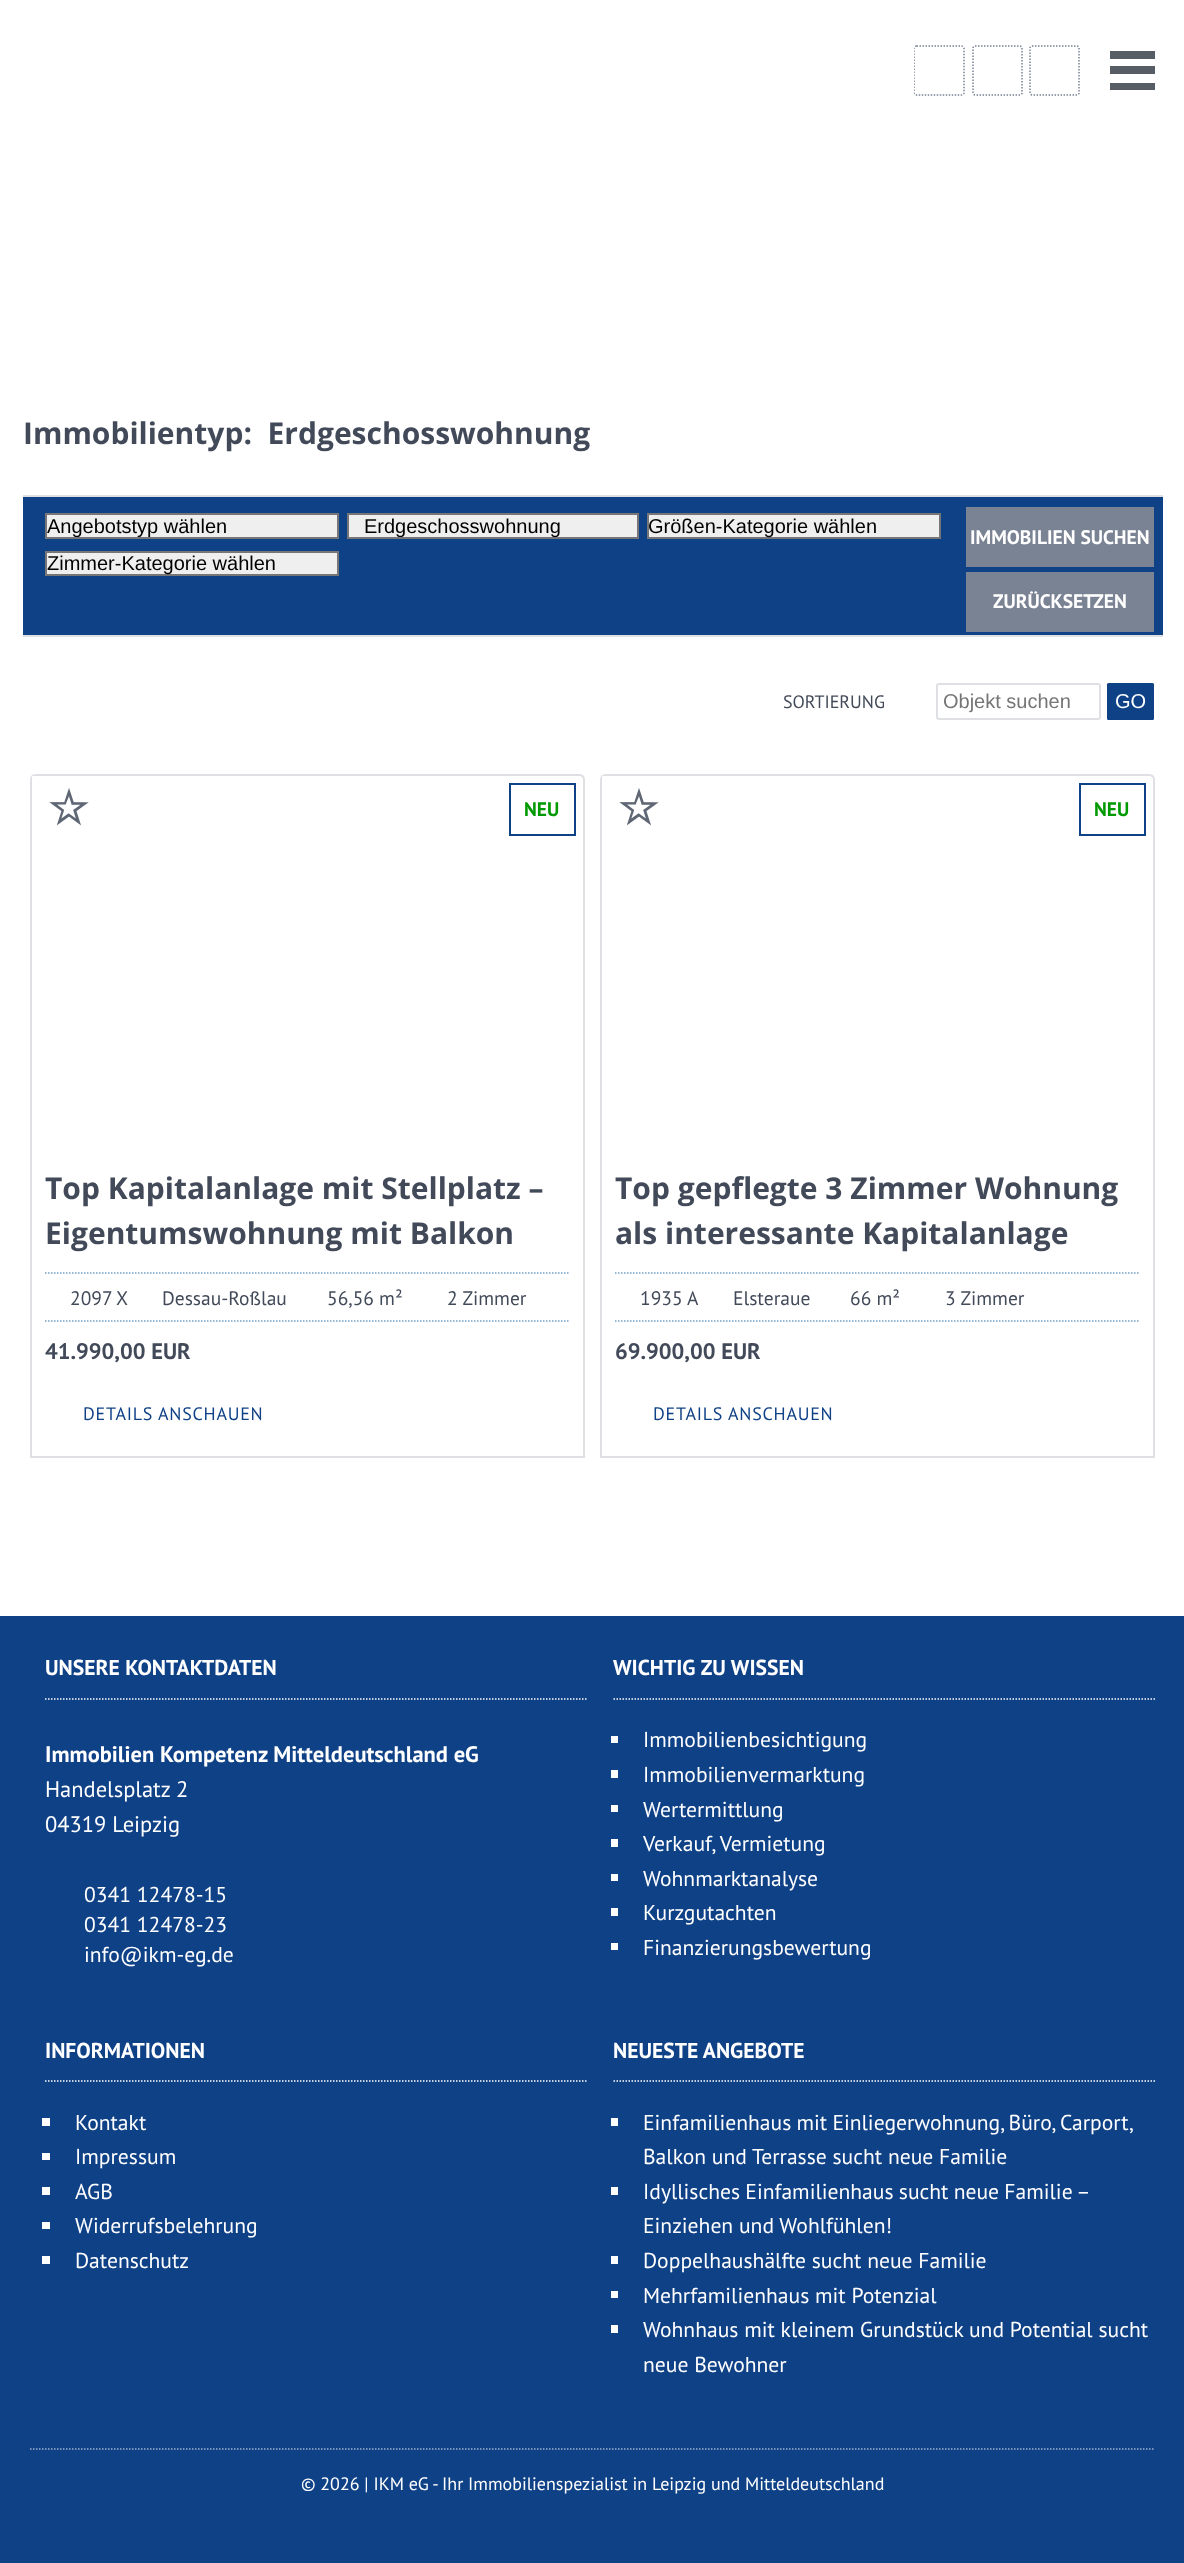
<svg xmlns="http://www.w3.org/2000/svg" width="1184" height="2563">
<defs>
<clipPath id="clip1"><rect x="914" y="15" width="241" height="81"/></clipPath>
<clipPath id="clip2"><rect x="47" y="515" width="291" height="22"/></clipPath>
<clipPath id="clip3"><rect x="348" y="515" width="290" height="22"/></clipPath>
</defs>
<rect width="100%" height="100%" fill="#0f4187"/>
<rect width="1184" height="1616" fill="#fff"/>
<rect x="1110" y="51" width="45" height="8" fill="#575d65"/>
<rect x="1110" y="66" width="45" height="8" fill="#575d65"/>
<rect x="1110" y="83" width="45" height="7" fill="#575d65"/>
<g clip-path="url(#clip1)">
<path d="M916.5 46h45c1 0 2.5 1 2.5 2v45c0 1-1.5 2-2.5 2h-45c-1 0-2.5-1-2.5-2v-45c0-1 1.5-2 2.5-2z" fill="none" stroke="#7a8394" stroke-width="1.5" stroke-dasharray="1.5 1.5"/>
</g>
<path d="M975 46h45c1 0 2 1 2 2v45c0 1-1 2-2 2h-45c-1 0-2-1-2-2v-45c0-1 1-2 2-2z" fill="none" stroke="#7a8394" stroke-width="1.5" stroke-dasharray="1.5 1.5"/>
<path d="M1032 46h45c1 0 2 1 2 2v45c0 1-1 2-2 2h-45c-1 0-2-1-2-2v-45c0-1 1-2 2-2z" fill="none" stroke="#7a8394" stroke-width="1.5" stroke-dasharray="1.5 1.5"/>
<text x="23" y="444" style="font-family:Open Sans;font-size:30px;font-weight:bold;fill:#424a59" xml:space="preserve">Immobilientyp:  Erdgeschosswohnung</text>
<rect x="23" y="497" width="1140" height="138" fill="#0f4187"/>
<rect x="23" y="495" width="1140" height="2" fill="#dee0e4"/>
<rect x="23" y="635" width="1140" height="2" fill="#dee0e4"/>
<rect x="46" y="514" width="292" height="24" fill="#efefef" stroke="#767676" stroke-width="2"/>
<g clip-path="url(#clip2)">
<text x="47" y="533" style="font-family:Liberation Sans;font-size:20px;fill:#000">Angebotstyp wählen</text>
</g>
<rect x="348" y="514" width="290" height="24" fill="#efefef" stroke="#767676" stroke-width="2"/>
<g clip-path="url(#clip3)">
<text x="364" y="533" style="font-family:Liberation Sans;font-size:20px;fill:#000">Erdgeschosswohnung</text>
</g>
<rect x="648" y="514" width="292" height="24" fill="#efefef" stroke="#767676" stroke-width="2"/>
<text x="648" y="533" style="font-family:Liberation Sans;font-size:20px;fill:#000">Größen-Kategorie wählen</text>
<rect x="46" y="552" width="292" height="23" fill="#efefef" stroke="#767676" stroke-width="2"/>
<text x="47" y="570" style="font-family:Liberation Sans;font-size:20px;fill:#000">Zimmer-Kategorie wählen</text>
<rect x="966" y="507" width="188" height="60" fill="#7a8394"/>
<text x="970" y="544" style="font-family:PT Sans;font-size:19.5px;font-weight:bold;fill:#fff">IMMOBILIEN SUCHEN</text>
<rect x="966" y="572" width="188" height="60" fill="#7a8394"/>
<text x="993" y="608" style="font-family:PT Sans;font-size:19.5px;font-weight:bold;fill:#fff">ZURÜCKSETZEN</text>
<text x="783" y="708" style="font-family:PT Sans;font-size:18px;fill:#424a59">SORTIERUNG</text>
<rect x="937" y="684" width="163" height="35" rx="2" fill="none" stroke="#dee0e4" stroke-width="2"/>
<text x="943" y="708" style="font-family:Liberation Sans;font-size:20px;fill:#757575">Objekt suchen</text>
<rect x="1107" y="683" width="47" height="37" rx="1.5" fill="#0f4187"/>
<text x="1115" y="708" style="font-family:Liberation Sans;font-size:20px;fill:#fff">GO</text>
<path d="M36 775h543c3 0 5 2 5 5v677h-553v-677c0-3 2-5 5-5z" fill="none" stroke="#dee0e4" stroke-width="2"/>
<path d="M32 776h120l-120 120z" fill="#ffffffd9"/>
<image x="49" y="788" width="40" height="38" href="media/1.png"/>
<rect x="510" y="784" width="65" height="51" fill="none" stroke="#0f4187" stroke-width="2"/>
<text x="524" y="816" style="font-family:PT Sans;font-size:19.5px;font-weight:bold;fill:#090">NEU</text>
<text x="45" y="1199" style="font-family:Open Sans;font-size:30px;font-weight:bold;fill:#424a59">Top Kapitalanlage mit Stellplatz –</text>
<text x="45" y="1244" style="font-family:Open Sans;font-size:30px;font-weight:bold;fill:#424a59">Eigentumswohnung mit Balkon</text>
<path d="M45 1273h525" fill="none" stroke="#70a0c7" stroke-width="1.5" stroke-dasharray="1.5 1.5"/>
<text x="70" y="1305" style="font-family:PT Sans;font-size:19.5px;fill:#424a59">2097 X</text>
<text x="162" y="1305" style="font-family:PT Sans;font-size:19.5px;fill:#424a59">Dessau-Roßlau</text>
<text x="327" y="1305" style="font-family:PT Sans;font-size:19.5px;fill:#424a59">56,56 m²</text>
<text x="447" y="1305" style="font-family:PT Sans;font-size:19.5px;fill:#424a59">2 Zimmer</text>
<path d="M45 1321h525" fill="none" stroke="#70a0c7" stroke-width="1.5" stroke-dasharray="1.5 1.5"/>
<text x="45" y="1359" style="font-family:PT Sans;font-size:22.5px;font-weight:bold;fill:#424a59">41.990,00 EUR</text>
<text x="83" y="1420" style="font-family:PT Sans;font-size:18px;letter-spacing:0.75px;fill:#0f4187">DETAILS ANSCHAUEN</text>
<path d="M606 775h543c3 0 5 2 5 5v677h-553v-677c0-3 2-5 5-5z" fill="none" stroke="#dee0e4" stroke-width="2"/>
<path d="M602 776h120l-120 120z" fill="#ffffffd9"/>
<image x="619" y="788" width="40" height="38" href="media/1.png"/>
<rect x="1080" y="784" width="65" height="51" fill="none" stroke="#0f4187" stroke-width="2"/>
<text x="1094" y="816" style="font-family:PT Sans;font-size:19.5px;font-weight:bold;fill:#090">NEU</text>
<text x="615" y="1199" style="font-family:Open Sans;font-size:30px;font-weight:bold;fill:#424a59">Top gepflegte 3 Zimmer Wohnung</text>
<text x="615" y="1244" style="font-family:Open Sans;font-size:30px;font-weight:bold;fill:#424a59">als interessante Kapitalanlage</text>
<path d="M615 1273h525" fill="none" stroke="#70a0c7" stroke-width="1.5" stroke-dasharray="1.5 1.5"/>
<text x="640" y="1305" style="font-family:PT Sans;font-size:19.5px;fill:#424a59">1935 A</text>
<text x="733" y="1305" style="font-family:PT Sans;font-size:19.5px;fill:#424a59">Elsteraue</text>
<text x="850" y="1305" style="font-family:PT Sans;font-size:19.5px;fill:#424a59">66 m²</text>
<text x="945" y="1305" style="font-family:PT Sans;font-size:19.5px;fill:#424a59">3 Zimmer</text>
<path d="M615 1321h525" fill="none" stroke="#70a0c7" stroke-width="1.5" stroke-dasharray="1.5 1.5"/>
<text x="615" y="1359" style="font-family:PT Sans;font-size:22.5px;font-weight:bold;fill:#424a59">69.900,00 EUR</text>
<text x="653" y="1420" style="font-family:PT Sans;font-size:18px;letter-spacing:0.75px;fill:#0f4187">DETAILS ANSCHAUEN</text>
<path d="M45 1699h541.5" fill="none" stroke="#fff" stroke-width="1.5" stroke-dasharray="1.5 1.5"/>
<text x="45" y="1675" style="font-family:PT Sans;font-size:21.6px;font-weight:bold;fill:#fff">UNSERE KONTAKTDATEN</text>
<text x="45" y="1762" style="font-family:PT Sans;font-size:22.5px;font-weight:bold;fill:#fff">Immobilien Kompetenz Mitteldeutschland eG</text>
<text x="45" y="1797" style="font-family:PT Sans;font-size:22.5px;fill:#fff">Handelsplatz 2</text>
<text x="45" y="1832" style="font-family:PT Sans;font-size:22.5px;fill:#fff">04319 Leipzig</text>
<text x="84" y="1902" style="font-family:PT Sans;font-size:21.6px;fill:#fff">0341 12478-15</text>
<text x="84" y="1932" style="font-family:PT Sans;font-size:21.6px;fill:#fff">0341 12478-23</text>
<text x="84" y="1962" style="font-family:PT Sans;font-size:21.6px;fill:#fff">info@ikm-eg.de</text>
<path d="M613.5 1699h541.5" fill="none" stroke="#fff" stroke-width="1.5" stroke-dasharray="1.5 1.5"/>
<text x="613" y="1675" style="font-family:PT Sans;font-size:21.6px;font-weight:bold;fill:#fff">WICHTIG ZU WISSEN</text>
<rect x="611" y="1736" width="7" height="7" fill="#fff"/>
<text x="643" y="1747" style="font-family:PT Sans;font-size:21.6px;fill:#fff">Immobilienbesichtigung</text>
<rect x="611" y="1770" width="7" height="8" fill="#fff"/>
<text x="643" y="1782" style="font-family:PT Sans;font-size:21.6px;fill:#fff">Immobilienvermarktung</text>
<rect x="611" y="1805" width="7" height="7" fill="#fff"/>
<text x="643" y="1817" style="font-family:PT Sans;font-size:21.6px;fill:#fff">Wertermittlung</text>
<rect x="611" y="1839" width="7" height="8" fill="#fff"/>
<text x="643" y="1851" style="font-family:PT Sans;font-size:21.6px;fill:#fff">Verkauf, Vermietung</text>
<rect x="611" y="1874" width="7" height="7" fill="#fff"/>
<text x="643" y="1886" style="font-family:PT Sans;font-size:21.6px;fill:#fff">Wohnmarktanalyse</text>
<rect x="611" y="1908" width="7" height="8" fill="#fff"/>
<text x="643" y="1920" style="font-family:PT Sans;font-size:21.6px;fill:#fff">Kurzgutachten</text>
<rect x="611" y="1943" width="7" height="7" fill="#fff"/>
<text x="643" y="1955" style="font-family:PT Sans;font-size:21.6px;fill:#fff">Finanzierungsbewertung</text>
<path d="M45 2081h541.5" fill="none" stroke="#fff" stroke-width="1.5" stroke-dasharray="1.5 1.5"/>
<text x="45" y="2058" style="font-family:PT Sans;font-size:21.6px;font-weight:bold;fill:#fff">INFORMATIONEN</text>
<rect x="42" y="2118" width="8" height="8" fill="#fff"/>
<text x="75" y="2130" style="font-family:PT Sans;font-size:21.6px;fill:#fff">Kontakt</text>
<rect x="42" y="2153" width="8" height="7" fill="#fff"/>
<text x="75" y="2164" style="font-family:PT Sans;font-size:21.6px;fill:#fff">Impressum</text>
<rect x="42" y="2187" width="8" height="8" fill="#fff"/>
<text x="75" y="2199" style="font-family:PT Sans;font-size:21.6px;fill:#fff">AGB</text>
<rect x="42" y="2222" width="8" height="7" fill="#fff"/>
<text x="75" y="2233" style="font-family:PT Sans;font-size:21.6px;fill:#fff">Widerrufsbelehrung</text>
<rect x="42" y="2256" width="8" height="8" fill="#fff"/>
<text x="75" y="2268" style="font-family:PT Sans;font-size:21.6px;fill:#fff">Datenschutz</text>
<path d="M613.5 2081h541.5" fill="none" stroke="#fff" stroke-width="1.5" stroke-dasharray="1.5 1.5"/>
<text x="613" y="2058" style="font-family:PT Sans;font-size:21.6px;font-weight:bold;fill:#fff">NEUESTE ANGEBOTE</text>
<rect x="611" y="2118" width="7" height="8" fill="#fff"/>
<text x="643" y="2130" word-spacing="-0.5" style="font-family:PT Sans;font-size:21.6px;fill:#fff">Einfamilienhaus mit Einliegerwohnung, Büro, Carport,</text>
<text x="643" y="2164" style="font-family:PT Sans;font-size:21.6px;fill:#fff">Balkon und Terrasse sucht neue Familie</text>
<rect x="611" y="2187" width="7" height="8" fill="#fff"/>
<text x="643" y="2199" word-spacing="-0.5" style="font-family:PT Sans;font-size:21.6px;fill:#fff">Idyllisches Einfamilienhaus sucht neue Familie –</text>
<text x="643" y="2233" style="font-family:PT Sans;font-size:21.6px;fill:#fff">Einziehen und Wohlfühlen!</text>
<rect x="611" y="2256" width="7" height="8" fill="#fff"/>
<text x="643" y="2268" style="font-family:PT Sans;font-size:21.6px;fill:#fff">Doppelhaushälfte sucht neue Familie</text>
<rect x="611" y="2291" width="7" height="7" fill="#fff"/>
<text x="643" y="2303" style="font-family:PT Sans;font-size:21.6px;fill:#fff">Mehrfamilienhaus mit Potenzial</text>
<rect x="611" y="2325" width="7" height="8" fill="#fff"/>
<text x="643" y="2337" style="font-family:PT Sans;font-size:21.6px;fill:#fff">Wohnhaus mit kleinem Grundstück und Potential sucht</text>
<text x="643" y="2372" style="font-family:PT Sans;font-size:21.6px;fill:#fff">neue Bewohner</text>
<path d="M30 2449h1125" fill="none" stroke="#9fb3cf" stroke-width="1.5" stroke-dasharray="1.5 1.5"/>
<text x="301" y="2490" style="font-family:PT Sans;font-size:18px;fill:#fff">© 2026 | IKM eG - Ihr Immobilienspezialist in Leipzig und Mitteldeutschland</text>
</svg>
